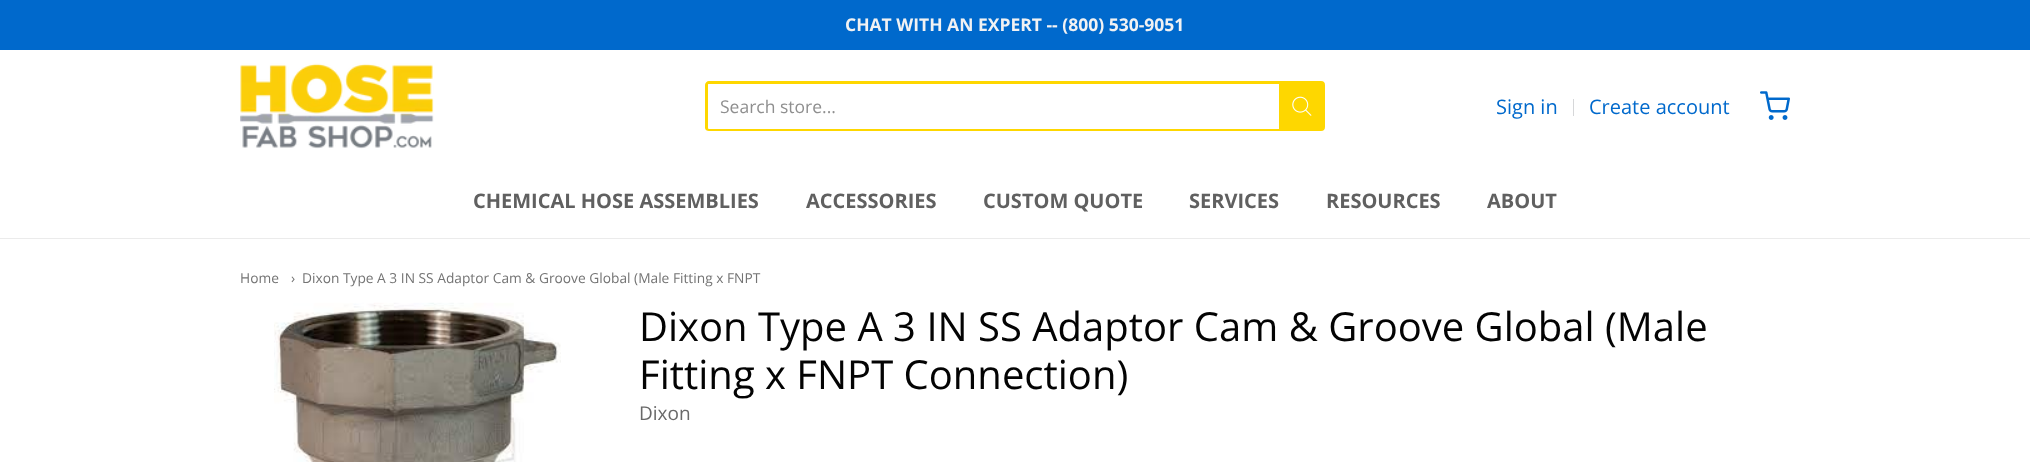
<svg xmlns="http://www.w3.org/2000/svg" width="2030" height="462">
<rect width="100%" height="100%" fill="#fff"/>
<rect y="238" width="2030" height="1" fill="#ebebeb"/>
<rect width="2030" height="50" fill="#0069cc"/>
<text x="845" y="31" style="font-family:Open Sans;font-size:17.5px;font-weight:bold;fill:#f1f2f3">CHAT WITH AN EXPERT -- (800) 530-9051</text>
<image x="240" y="63" width="194" height="86" href="media/1.png"/>
<path d="M709 81h570v50h-570c-2 0-4-1-4-3v-43c0-2 2-4 4-4zm0 3h570v45h-570c-1 0-1-1-1-1v-43c0-1 0-1 1-1z" fill="#fed700" fill-rule="evenodd"/>
<text x="720" y="113" style="font-family:Open Sans;font-size:17.5px;fill:#8f8f8f">Search store...</text>
<path d="M1280.5 82.5h40.5c1.5 0 2.5 1 2.5 2.5v42c0 1.5-1 2.5-2.5 2.5h-40.5z" fill="#fed700" stroke="#fed700" stroke-width="3"/>
<image x="1292" y="96" width="20" height="20" href="media/2.png"/>
<text x="1496" y="114" style="font-family:Open Sans;font-size:20px;fill:#0069cc">Sign in</text>
<rect x="1573" y="99" width="1" height="17" fill="#d6d7d9"/>
<text x="1589" y="114" style="font-family:Open Sans;font-size:20px;fill:#0069cc">Create account</text>
<image x="1760" y="91" width="30" height="29" href="media/3.png"/>
<text x="473" y="208" style="font-family:Open Sans;font-size:20px;font-weight:bold;fill:#606060">CHEMICAL HOSE ASSEMBLIES</text>
<text x="806" y="208" style="font-family:Open Sans;font-size:20px;font-weight:bold;fill:#606060">ACCESSORIES</text>
<text x="983" y="208" style="font-family:Open Sans;font-size:20px;font-weight:bold;fill:#606060">CUSTOM QUOTE</text>
<text x="1189" y="208" style="font-family:Open Sans;font-size:20px;font-weight:bold;fill:#606060">SERVICES</text>
<text x="1326" y="208" style="font-family:Open Sans;font-size:20px;font-weight:bold;fill:#606060">RESOURCES</text>
<text x="1487" y="208" style="font-family:Open Sans;font-size:20px;font-weight:bold;fill:#606060">ABOUT</text>
<text x="240" y="283" style="font-family:Open Sans;font-size:13.75px;fill:#747474">Home</text>
<text x="291" y="283" style="font-family:Open Sans;font-size:13.75px;fill:#747474">›</text>
<text x="302" y="283" style="font-family:Open Sans;font-size:13.75px;fill:#747474">Dixon Type A 3 IN SS Adaptor Cam &amp; Groove Global (Male Fitting x FNPT</text>
<image x="274" y="302" width="287" height="160" href="media/4.png"/>
<text x="639" y="341" style="font-family:Open Sans;font-size:40px;fill:#030303">Dixon Type A 3 IN SS Adaptor Cam &amp; Groove Global (Male</text>
<text x="639" y="389" style="font-family:Open Sans;font-size:40px;fill:#030303">Fitting x FNPT Connection)</text>
<text x="639" y="420" style="font-family:Open Sans;font-size:19px;fill:#696969">Dixon</text>
</svg>
